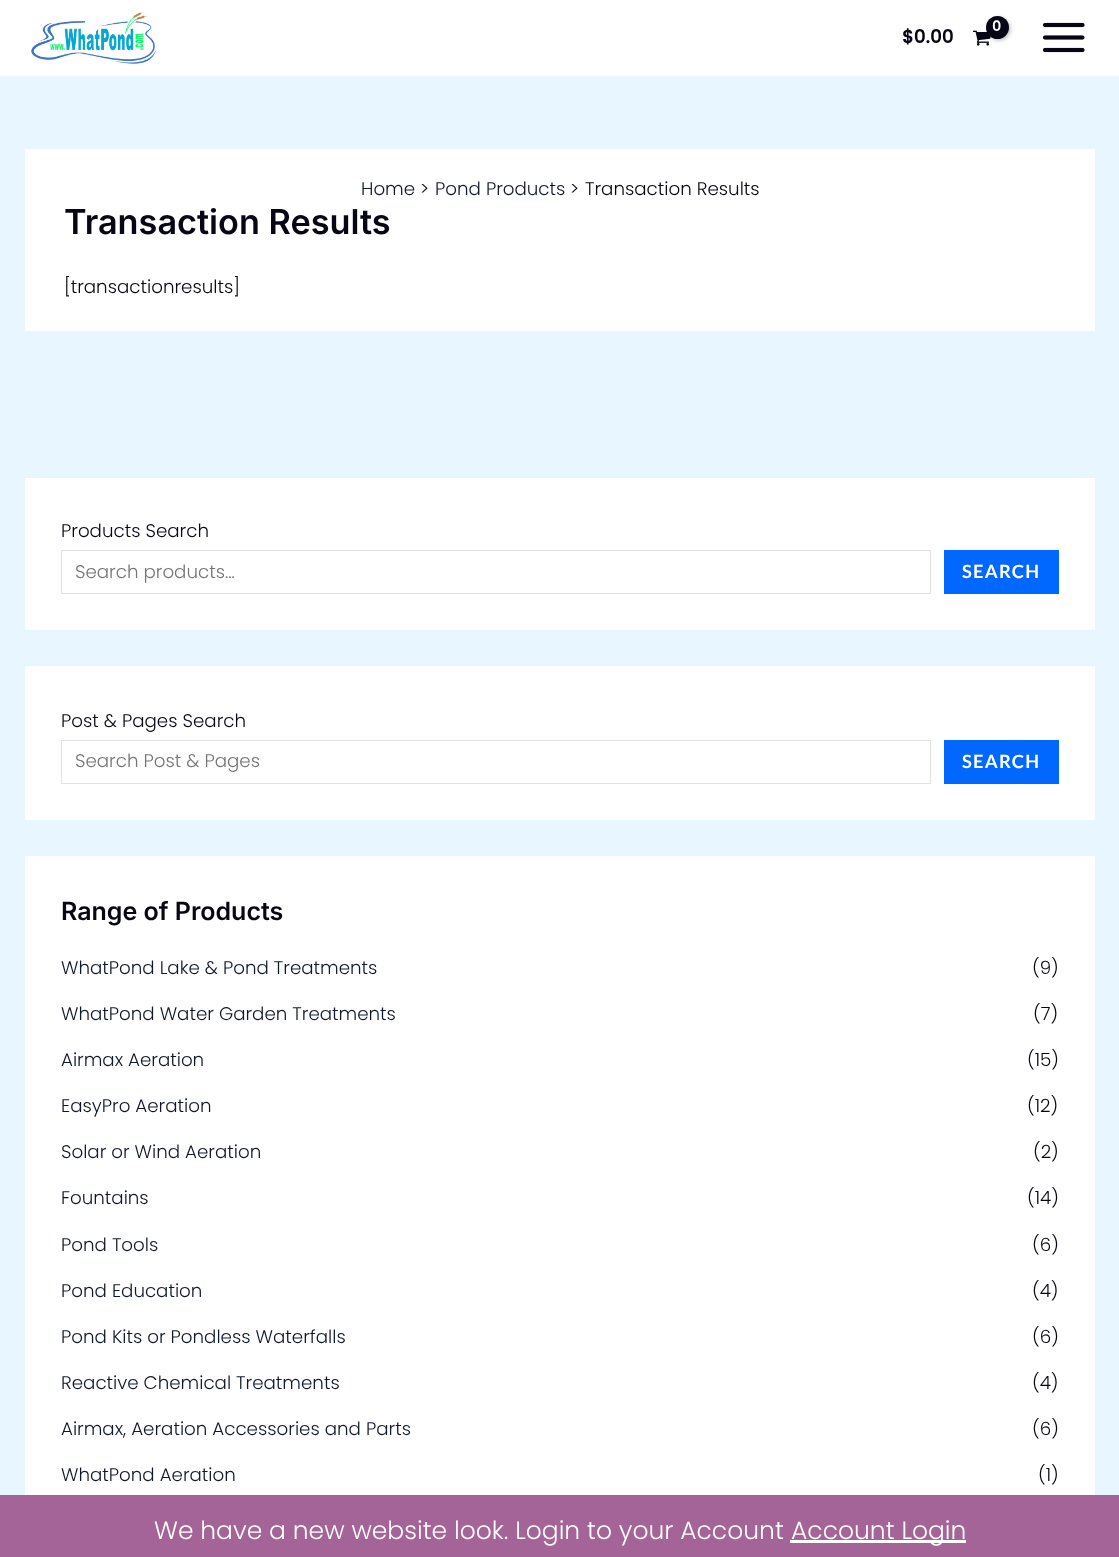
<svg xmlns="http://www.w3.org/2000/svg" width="1119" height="1557">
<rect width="100%" height="100%" fill="#e7f6ff"/>
<rect width="1119" height="76" fill="#fff"/>
<image x="31" y="12" width="126" height="52" href="media/1.png"/>
<image x="973" y="30" width="18" height="16" href="media/2.png"/>
<rect x="988" y="18" width="22" height="22" rx="11" fill="#0000004d" filter="blur(2px)"/>
<circle cx="997.5" cy="27.5" r="11.5" fill="#070614"/>
<text x="992" y="31" style="font-family:Poppins;font-size:14px;font-weight:bold;letter-spacing:-1px;fill:#fff">0</text>
<text x="902" y="43" style="font-family:Poppins;font-size:18.25px;font-weight:bold;fill:#070614">$0.00</text>
<image x="1042" y="22" width="43" height="31" href="media/3.png"/>
<rect x="25" y="149" width="1070" height="182" fill="#fff"/>
<text x="361" y="195" style="font-family:Poppins;font-size:18.25px;font-weight:300;fill:#0f172a">Home</text>
<text x="420" y="195" style="font-family:Poppins;font-size:18.25px;font-weight:300;fill:#070614">&gt;</text>
<text x="435" y="195" style="font-family:Poppins;font-size:18.25px;font-weight:300;fill:#0f172a">Pond Products</text>
<text x="570" y="195" style="font-family:Poppins;font-size:18.25px;font-weight:300;fill:#070614">&gt;</text>
<text x="585" y="195" style="font-family:Poppins;font-size:18.25px;font-weight:300;fill:#070614">Transaction Results</text>
<text x="64" y="234" style="font-family:Inter;font-size:34.25px;font-weight:600;fill:#070614">Transaction Results</text>
<text x="64" y="293" style="font-family:Poppins;font-size:18.25px;font-weight:300;fill:#070614">[transactionresults]</text>
<rect x="25" y="478" width="1070" height="152" fill="#fff"/>
<text x="61" y="537" style="font-family:Poppins;font-size:18.25px;font-weight:300;fill:#070614">Products Search</text>
<rect x="61.5" y="550.5" width="869" height="43" fill="none" stroke="#e2e2e2"/>
<text x="75" y="578" style="font-family:Poppins;font-size:18.25px;font-weight:300;fill:#757575">Search products…</text>
<rect x="944" y="550" width="115" height="44" fill="#0067ff"/>
<text x="962" y="578" style="font-family:Lato;font-size:18.25px;font-weight:bold;letter-spacing:1.25px;fill:#fff">SEARCH</text>
<rect x="25" y="666" width="1070" height="154" fill="#fff"/>
<text x="61" y="727" style="font-family:Poppins;font-size:18.25px;font-weight:300;fill:#070614">Post &amp; Pages Search</text>
<rect x="61.5" y="740.5" width="869" height="43" fill="none" stroke="#e2e2e2"/>
<text x="75" y="767" style="font-family:Poppins;font-size:18.25px;font-weight:300;fill:#757575">Search Post &amp; Pages</text>
<rect x="944" y="740" width="115" height="44" fill="#0067ff"/>
<text x="962" y="768" style="font-family:Lato;font-size:18.25px;font-weight:bold;letter-spacing:1.25px;fill:#fff">SEARCH</text>
<rect x="25" y="856" width="1070" height="639" fill="#fff"/>
<text x="61" y="920" style="font-family:Inter;font-size:25px;font-weight:600;fill:#070614">Range of Products</text>
<text x="61" y="974" style="font-family:Poppins;font-size:18.25px;font-weight:300;fill:#0f172a">WhatPond Lake &amp; Pond Treatments</text>
<text x="1032" y="974" style="font-family:Poppins;font-size:18.25px;font-weight:300;fill:#070614">(9)</text>
<text x="61" y="1020" style="font-family:Poppins;font-size:18.25px;font-weight:300;fill:#0f172a">WhatPond Water Garden Treatments</text>
<text x="1033" y="1020" style="font-family:Poppins;font-size:18.25px;font-weight:300;fill:#070614">(7)</text>
<text x="61" y="1066" style="font-family:Poppins;font-size:18.25px;font-weight:300;fill:#0f172a">Airmax Aeration</text>
<text x="1027" y="1066" style="font-family:Poppins;font-size:18.25px;font-weight:300;fill:#070614">(15)</text>
<text x="61" y="1112" style="font-family:Poppins;font-size:18.25px;font-weight:300;fill:#0f172a">EasyPro Aeration</text>
<text x="1027" y="1112" style="font-family:Poppins;font-size:18.25px;font-weight:300;fill:#070614">(12)</text>
<text x="61" y="1158" style="font-family:Poppins;font-size:18.25px;font-weight:300;fill:#0f172a">Solar or Wind Aeration</text>
<text x="1033" y="1158" style="font-family:Poppins;font-size:18.25px;font-weight:300;fill:#070614">(2)</text>
<text x="61" y="1204" style="font-family:Poppins;font-size:18.25px;font-weight:300;fill:#0f172a">Fountains</text>
<text x="1027" y="1204" style="font-family:Poppins;font-size:18.25px;font-weight:300;fill:#070614">(14)</text>
<text x="61" y="1251" style="font-family:Poppins;font-size:18.25px;font-weight:300;fill:#0f172a">Pond Tools</text>
<text x="1032" y="1251" style="font-family:Poppins;font-size:18.25px;font-weight:300;fill:#070614">(6)</text>
<text x="61" y="1297" style="font-family:Poppins;font-size:18.25px;font-weight:300;fill:#0f172a">Pond Education</text>
<text x="1032" y="1297" style="font-family:Poppins;font-size:18.25px;font-weight:300;fill:#070614">(4)</text>
<text x="61" y="1343" style="font-family:Poppins;font-size:18.25px;font-weight:300;fill:#0f172a">Pond Kits or Pondless Waterfalls</text>
<text x="1032" y="1343" style="font-family:Poppins;font-size:18.25px;font-weight:300;fill:#070614">(6)</text>
<text x="61" y="1389" style="font-family:Poppins;font-size:18.25px;font-weight:300;fill:#0f172a">Reactive Chemical Treatments</text>
<text x="1032" y="1389" style="font-family:Poppins;font-size:18.25px;font-weight:300;fill:#070614">(4)</text>
<text x="61" y="1435" style="font-family:Poppins;font-size:18.25px;font-weight:300;fill:#0f172a">Airmax, Aeration Accessories and Parts</text>
<text x="1032" y="1435" style="font-family:Poppins;font-size:18.25px;font-weight:300;fill:#070614">(6)</text>
<text x="61" y="1481" style="font-family:Poppins;font-size:18.25px;font-weight:300;fill:#0f172a">WhatPond Aeration</text>
<text x="1038" y="1481" style="font-family:Poppins;font-size:18.25px;font-weight:300;fill:#070614">(1)</text>
<rect y="1495" width="1119" height="62" fill="#a46497"/>
<text x="154" y="1539" style="font-family:Poppins;font-size:25px;font-weight:300;fill:#fff">We have a new website look. Login to your Account</text>
<rect x="790" y="1540" width="176" height="3" fill="#fff"/>
<text x="791" y="1539" style="font-family:Poppins;font-size:25px;font-weight:300;fill:#fff">Account Login</text>
</svg>
